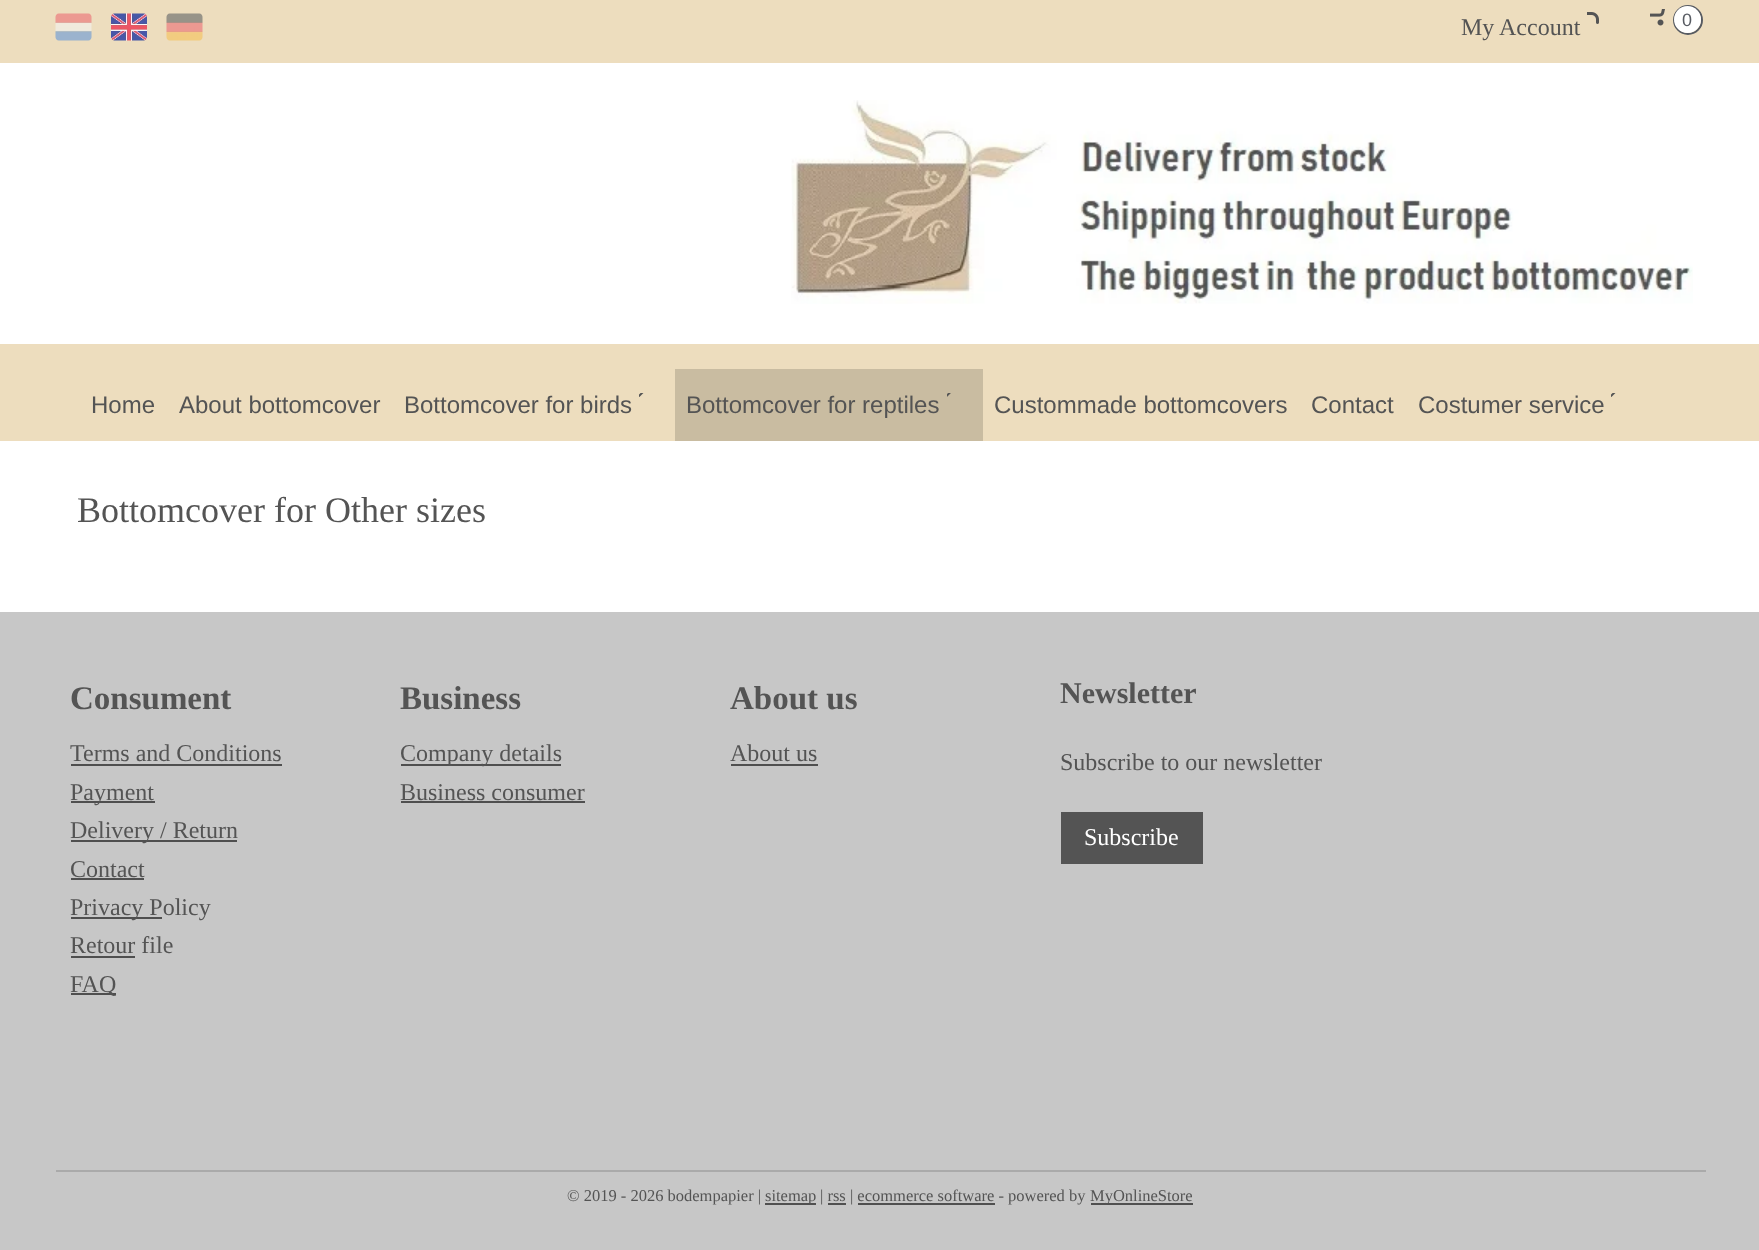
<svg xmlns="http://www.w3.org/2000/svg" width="1759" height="1250">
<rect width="100%" height="100%" fill="#fff"/>
<rect width="1759" height="63" fill="#edddbe"/>
<image x="55" y="13" width="37" height="28" href="media/1.png"/>
<image x="111" y="13" width="36" height="28" href="media/2.png"/>
<image x="166" y="13" width="37" height="28" href="media/3.png"/>
<text x="1461" y="35" style="font-family:Liberation Serif;font-size:24px;fill:#545454">My Account</text>
<image x="1587" y="12" width="12" height="12" href="media/4.png"/>
<image x="1650" y="9" width="15" height="17" href="media/5.png"/>
<circle cx="1688" cy="20" r="14" fill="none" stroke="#575b62" stroke-width="2"/>
<circle cx="1687.5" cy="19.5" r="13.5" fill="#fff"/>
<text x="1682" y="26" style="font-family:Liberation Sans;font-size:18px;fill:#575b62">0</text>
<image x="791" y="100" width="902" height="204" href="media/6.png"/>
<rect y="344" width="1759" height="97" fill="#edddbe"/>
<text x="91" y="413" style="font-family:Liberation Sans;font-size:24px;fill:#545454">Home</text>
<text x="179" y="413" style="font-family:Liberation Sans;font-size:24px;fill:#545454">About bottomcover</text>
<text x="404" y="413" style="font-family:Liberation Sans;font-size:24px;fill:#545454">Bottomcover for birds</text>
<image x="639" y="393" width="5" height="4" href="media/7.png"/>
<rect x="675" y="369" width="308" height="72" fill="#c9bca1"/>
<text x="686" y="413" style="font-family:Liberation Sans;font-size:24px;fill:#545454">Bottomcover for reptiles</text>
<image x="947" y="393" width="4" height="4" href="media/8.png"/>
<text x="994" y="413" style="font-family:Liberation Sans;font-size:24px;fill:#545454">Custommade bottomcovers</text>
<text x="1311" y="413" style="font-family:Liberation Sans;font-size:24px;fill:#545454">Contact</text>
<text x="1418" y="413" style="font-family:Liberation Sans;font-size:24px;fill:#545454">Costumer service</text>
<image x="1611" y="393" width="5" height="4" href="media/7.png"/>
<text x="77" y="522" style="font-family:Liberation Serif;font-size:36px;fill:#545454">Bottomcover for Other sizes</text>
<rect y="612" width="1759" height="638" fill="#c7c7c7"/>
<text x="70" y="709" style="font-family:Liberation Serif;font-size:33px;font-weight:bold;fill:#545454">Consument</text>
<text x="70" y="761" style="font-family:Liberation Serif;font-size:24px;fill:#545454">Terms and Conditions</text>
<rect x="71" y="764" width="211" height="2" fill="#4f4f4f"/>
<rect x="71" y="801" width="84" height="2" fill="#4f4f4f"/>
<text x="70" y="800" style="font-family:Liberation Serif;font-size:24px;fill:#545454">Payment</text>
<rect x="71" y="840" width="166" height="2" fill="#4f4f4f"/>
<text x="70" y="838" style="font-family:Liberation Serif;font-size:24px;fill:#545454">Delivery / Return</text>
<text x="70" y="877" style="font-family:Liberation Serif;font-size:24px;fill:#545454">Contact</text>
<rect x="71" y="878" width="73" height="2" fill="#4f4f4f"/>
<rect x="71" y="917" width="91" height="2" fill="#4f4f4f"/>
<text x="70" y="915" style="font-family:Liberation Serif;font-size:24px;fill:#545454">Privacy Policy</text>
<text x="70" y="953" style="font-family:Liberation Serif;font-size:24px;fill:#545454">Retour file</text>
<rect x="71" y="956" width="64" height="2" fill="#4f4f4f"/>
<rect x="71" y="993" width="45" height="2" fill="#4f4f4f"/>
<text x="70" y="992" style="font-family:Liberation Serif;font-size:24px;fill:#545454">FAQ</text>
<text x="400" y="709" style="font-family:Liberation Serif;font-size:33px;font-weight:bold;fill:#545454">Business</text>
<rect x="401" y="764" width="160" height="2" fill="#4f4f4f"/>
<text x="400" y="761" style="font-family:Liberation Serif;font-size:24px;fill:#545454">Company details</text>
<text x="400" y="800" style="font-family:Liberation Serif;font-size:24px;fill:#545454">Business consumer</text>
<rect x="401" y="801" width="184" height="2" fill="#4f4f4f"/>
<text x="730" y="709" style="font-family:Liberation Serif;font-size:33px;font-weight:bold;fill:#545454">About us</text>
<text x="730" y="761" style="font-family:Liberation Serif;font-size:24px;fill:#545454">About us</text>
<rect x="731" y="764" width="87" height="2" fill="#4f4f4f"/>
<text x="1060" y="703" style="font-family:Liberation Serif;font-size:30px;font-weight:bold;fill:#545454">Newsletter</text>
<text x="1060" y="770" style="font-family:Liberation Serif;font-size:24px;fill:#545454">Subscribe to our newsletter</text>
<rect x="1061" y="812" width="142" height="52" fill="#545454"/>
<text x="1084" y="845" style="font-family:Liberation Serif;font-size:24px;fill:#fff">Subscribe</text>
<rect x="56" y="1170" width="1650" height="2" fill="#aaa"/>
<text x="567" y="1201" style="font-family:Liberation Serif;font-size:16.5px;fill:#545454">© 2019 - 2026 bodempapier |</text>
<rect x="765" y="1203" width="51" height="2" fill="#505050"/>
<text x="765" y="1201" style="font-family:Liberation Serif;font-size:16.5px;fill:#545454">sitemap</text>
<text x="820" y="1201" style="font-family:Liberation Serif;font-size:16.5px;fill:#545454">| rss | ecommerce software - powered by</text>
<rect x="1091" y="1203" width="102" height="2" fill="#505050"/>
<text x="1090" y="1201" style="font-family:Liberation Serif;font-size:16.5px;fill:#545454">MyOnlineStore</text>
<rect x="828" y="1203" width="18" height="2" fill="#505050"/>
<rect x="858" y="1203" width="137" height="2" fill="#505050"/>
</svg>
